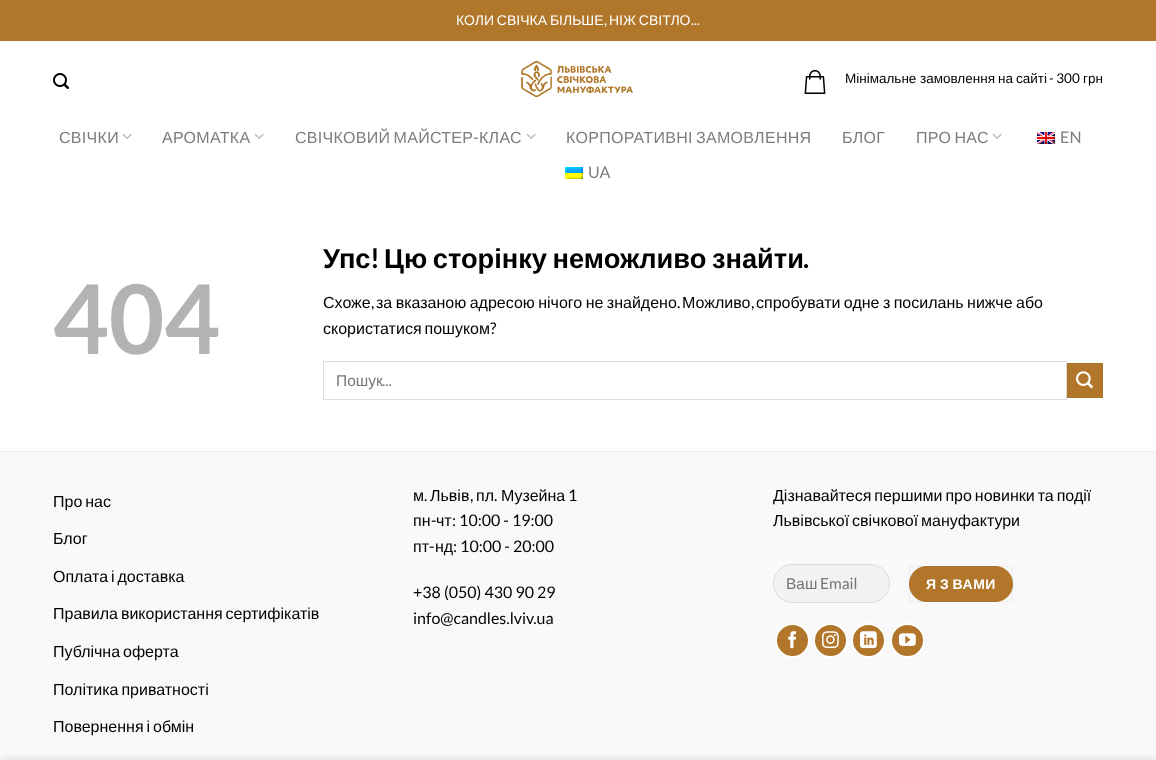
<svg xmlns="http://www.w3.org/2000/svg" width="1156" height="760">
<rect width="100%" height="100%" fill="#fff"/>
<rect width="1156" height="41" fill="#b0762a"/>
<text x="456" y="25" word-spacing="-1" style="font-family:Liberation Sans;font-size:14px;fill:#fff">КОЛИ СВІЧКА БІЛЬШЕ</text>
<text x="604" y="25" style="font-family:Lato;font-size:14px;fill:#fff">,</text>
<text x="609" y="25" word-spacing="-1" style="font-family:Liberation Sans;font-size:14px;fill:#fff">НІЖ СВІТЛО</text>
<text x="691" y="25" style="font-family:Lato;font-size:14px;fill:#fff">...</text>
<image x="53" y="73" width="16" height="16" href="media/1.png"/>
<image x="521" y="60" width="112" height="38" href="media/2.png"/>
<image x="804" y="70" width="22" height="24" href="media/3.png"/>
<text x="845" y="83" style="font-family:Liberation Sans;font-size:13.5px;fill:#000">Мінімальне</text>
<text x="920" y="83" style="font-family:Liberation Sans;font-size:13.5px;fill:#000">замовлення</text>
<text x="998" y="83" style="font-family:Liberation Sans;font-size:13.5px;fill:#000">на</text>
<text x="1016" y="83" style="font-family:Liberation Sans;font-size:13.5px;fill:#000">сайті</text>
<text x="1049" y="83" style="font-family:Lato;font-size:13.5px;fill:#000">- 300</text>
<text x="1083" y="83" style="font-family:Liberation Sans;font-size:13.5px;fill:#000">грн</text>
<text x="59" y="143" style="font-family:Liberation Sans;font-size:16px;letter-spacing:0.3px;fill:#7d7d7d">СВІЧКИ</text>
<image x="122" y="133" width="10" height="6" href="media/4.png"/>
<text x="162" y="143" style="font-family:Liberation Sans;font-size:16px;letter-spacing:0.3px;fill:#7d7d7d">АРОМАТКА</text>
<image x="254" y="133" width="10" height="6" href="media/4.png"/>
<text x="295" y="143" word-spacing="-1.5" style="font-family:Liberation Sans;font-size:16px;letter-spacing:0.3px;fill:#7d7d7d">СВІЧКОВИЙ МАЙСТЕР</text>
<text x="473" y="143" style="font-family:Lato;font-size:16px;letter-spacing:0.3px;fill:#7d7d7d">-</text>
<text x="479" y="143" style="font-family:Liberation Sans;font-size:16px;letter-spacing:0.3px;fill:#7d7d7d">КЛАС</text>
<image x="526" y="133" width="10" height="6" href="media/4.png"/>
<text x="566" y="143" word-spacing="-1.5" style="font-family:Liberation Sans;font-size:16px;letter-spacing:0.3px;fill:#7d7d7d">КОРПОРАТИВНІ ЗАМОВЛЕННЯ</text>
<text x="842" y="143" style="font-family:Liberation Sans;font-size:16px;letter-spacing:0.3px;fill:#7d7d7d">БЛОГ</text>
<text x="916" y="143" word-spacing="-1.5" style="font-family:Liberation Sans;font-size:16px;letter-spacing:0.3px;fill:#7d7d7d">ПРО НАС</text>
<image x="992" y="133" width="10" height="6" href="media/4.png"/>
<image x="1037" y="132" width="18" height="12" href="media/5.png"/>
<text x="1060" y="143" style="font-family:Lato;font-size:16px;letter-spacing:0.3px;fill:#7d7d7d">EN</text>
<image x="565" y="167" width="18" height="12" href="media/6.png"/>
<text x="588" y="178" style="font-family:Lato;font-size:16px;letter-spacing:0.3px;fill:#7d7d7d">UA</text>
<text x="53" y="354" style="font-family:Lato;font-size:96px;font-weight:bold;fill:#b3b3b3">404</text>
<text x="323" y="268" style="font-family:Liberation Sans;font-size:27.25px;font-weight:bold;fill:#000">Упс</text>
<text x="370" y="268" style="font-family:Lato;font-size:27.25px;font-weight:bold;fill:#000">!</text>
<text x="384" y="268" word-spacing="-2" style="font-family:Liberation Sans;font-size:27.25px;font-weight:bold;fill:#000">Цю сторінку неможливо знайти</text>
<text x="803" y="268" style="font-family:Lato;font-size:27.25px;font-weight:bold;fill:#000">.</text>
<text x="323" y="308" style="font-family:Liberation Sans;font-size:16px;fill:#000">Схоже</text>
<text x="371" y="308" style="font-family:Lato;font-size:16px;fill:#000">,</text>
<text x="376" y="308" word-spacing="-1" style="font-family:Liberation Sans;font-size:16px;fill:#000">за вказаною адресою нічого не знайдено</text>
<text x="677" y="308" style="font-family:Lato;font-size:16px;fill:#000">.</text>
<text x="682" y="308" style="font-family:Liberation Sans;font-size:16px;fill:#000">Можливо</text>
<text x="751" y="308" style="font-family:Lato;font-size:16px;fill:#000">,</text>
<text x="756" y="308" word-spacing="-1" style="font-family:Liberation Sans;font-size:16px;fill:#000">спробувати одне з посилань нижче або</text>
<text x="323" y="334" word-spacing="-1.5" style="font-family:Liberation Sans;font-size:16px;fill:#000">скористатися пошуком</text>
<text x="490" y="334" style="font-family:Lato;font-size:16px;fill:#000">?</text>
<rect x="323.5" y="361.5" width="743" height="38" fill="none" stroke="#ddd"/>
<text x="336" y="386" style="font-family:Liberation Sans;font-size:15.5px;fill:#757575">Пошук</text>
<text x="382" y="386" style="font-family:Lato;font-size:15.5px;fill:#757575">...</text>
<rect x="1067.5" y="363.5" width="35" height="34" fill="#b1762a" stroke="#a87028"/>
<image x="1076" y="371" width="17" height="17" href="media/7.png"/>
<rect y="452" width="1156" height="308" fill="#f9f9f9"/>
<rect y="451" width="1156" height="1" fill="#ededed"/>
<text x="53" y="507" word-spacing="-1.5" style="font-family:Liberation Sans;font-size:16px;fill:#000">Про нас</text>
<text x="53" y="544" style="font-family:Liberation Sans;font-size:16px;fill:#000">Блог</text>
<text x="53" y="582" word-spacing="-1.5" style="font-family:Liberation Sans;font-size:16px;fill:#000">Оплата і доставка</text>
<text x="53" y="619" word-spacing="-1.5" style="font-family:Liberation Sans;font-size:16px;fill:#000">Правила використання сертифікатів</text>
<text x="53" y="657" word-spacing="-1.5" style="font-family:Liberation Sans;font-size:16px;fill:#000">Публічна оферта</text>
<text x="53" y="695" word-spacing="-1.5" style="font-family:Liberation Sans;font-size:16px;fill:#000">Політика приватності</text>
<text x="53" y="732" word-spacing="-1.5" style="font-family:Liberation Sans;font-size:16px;fill:#000">Повернення і обмін</text>
<text x="413" y="501" style="font-family:Liberation Sans;font-size:16px;fill:#000">м</text>
<text x="424" y="501" style="font-family:Lato;font-size:16px;fill:#000">.</text>
<text x="430" y="501" style="font-family:Liberation Sans;font-size:16px;fill:#000">Львів</text>
<text x="470" y="501" style="font-family:Lato;font-size:16px;fill:#000">,</text>
<text x="476" y="501" style="font-family:Liberation Sans;font-size:16px;fill:#000">пл</text>
<text x="494" y="501" style="font-family:Lato;font-size:16px;fill:#000">.</text>
<text x="501" y="501" style="font-family:Liberation Sans;font-size:16px;fill:#000">Музейна</text>
<text x="568" y="501" style="font-family:Lato;font-size:16px;fill:#000">1</text>
<text x="413" y="526" style="font-family:Liberation Sans;font-size:16px;fill:#000">пн</text>
<text x="431" y="526" style="font-family:Lato;font-size:16px;fill:#000">-</text>
<text x="436" y="526" style="font-family:Liberation Sans;font-size:16px;fill:#000">чт</text>
<text x="452" y="526" style="font-family:Lato;font-size:16px;fill:#000">: 10:00 - 19:00</text>
<text x="413" y="552" style="font-family:Liberation Sans;font-size:16px;fill:#000">пт</text>
<text x="429" y="552" style="font-family:Lato;font-size:16px;fill:#000">-</text>
<text x="435" y="552" style="font-family:Liberation Sans;font-size:16px;fill:#000">нд</text>
<text x="453" y="552" style="font-family:Lato;font-size:16px;fill:#000">: 10:00 - 20:00</text>
<text x="413" y="598" style="font-family:Lato;font-size:16px;fill:#000">+38 (050) 430 90 29</text>
<text x="413" y="624" style="font-family:Lato;font-size:16px;fill:#000">info@candles.lviv.ua</text>
<text x="773" y="501" word-spacing="-1.5" style="font-family:Liberation Sans;font-size:16px;fill:#000">Дізнавайтеся першими про новинки та події</text>
<text x="773" y="526" word-spacing="-1.5" style="font-family:Liberation Sans;font-size:16px;fill:#000">Львівської свічкової мануфактури</text>
<rect x="773" y="564" width="117" height="39" rx="19.5" fill="#f2f2f2"/>
<rect x="773.5" y="564.5" width="116" height="38" rx="19" fill="none" stroke="#00000017"/>
<text x="786" y="589" style="font-family:Liberation Sans;font-size:15.5px;fill:#757575">Ваш</text>
<text x="820" y="589" style="font-family:Lato;font-size:15.5px;fill:#757575">Email</text>
<rect x="909" y="566" width="104" height="36" rx="18" fill="#b1762a"/>
<rect x="909.5" y="566.5" width="103" height="35" fill="none" stroke="#0000000d"/>
<text x="926" y="589" word-spacing="-1" style="font-family:Liberation Sans;font-size:14px;font-weight:bold;letter-spacing:0.5px;fill:#fff">Я З ВАМИ</text>
<circle cx="792.5" cy="640.5" r="16.5" fill="#b1762a" stroke="#fff" stroke-width="2"/>
<image x="788" y="631" width="9" height="18" href="media/8.png"/>
<circle cx="830.5" cy="640.5" r="16.5" fill="#b1762a" stroke="#fff" stroke-width="2"/>
<image x="822" y="631" width="17" height="18" href="media/9.png"/>
<circle cx="868.5" cy="640.5" r="16.5" fill="#b1762a" stroke="#fff" stroke-width="2"/>
<image x="860" y="631" width="17" height="18" href="media/10.png"/>
<circle cx="907.5" cy="640.5" r="16.5" fill="#b1762a" stroke="#fff" stroke-width="2"/>
<image x="899" y="633" width="17" height="13" href="media/11.png"/>
<rect y="760" width="1156" height="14" fill="#00000024" filter="blur(4.5px)"/>
</svg>
